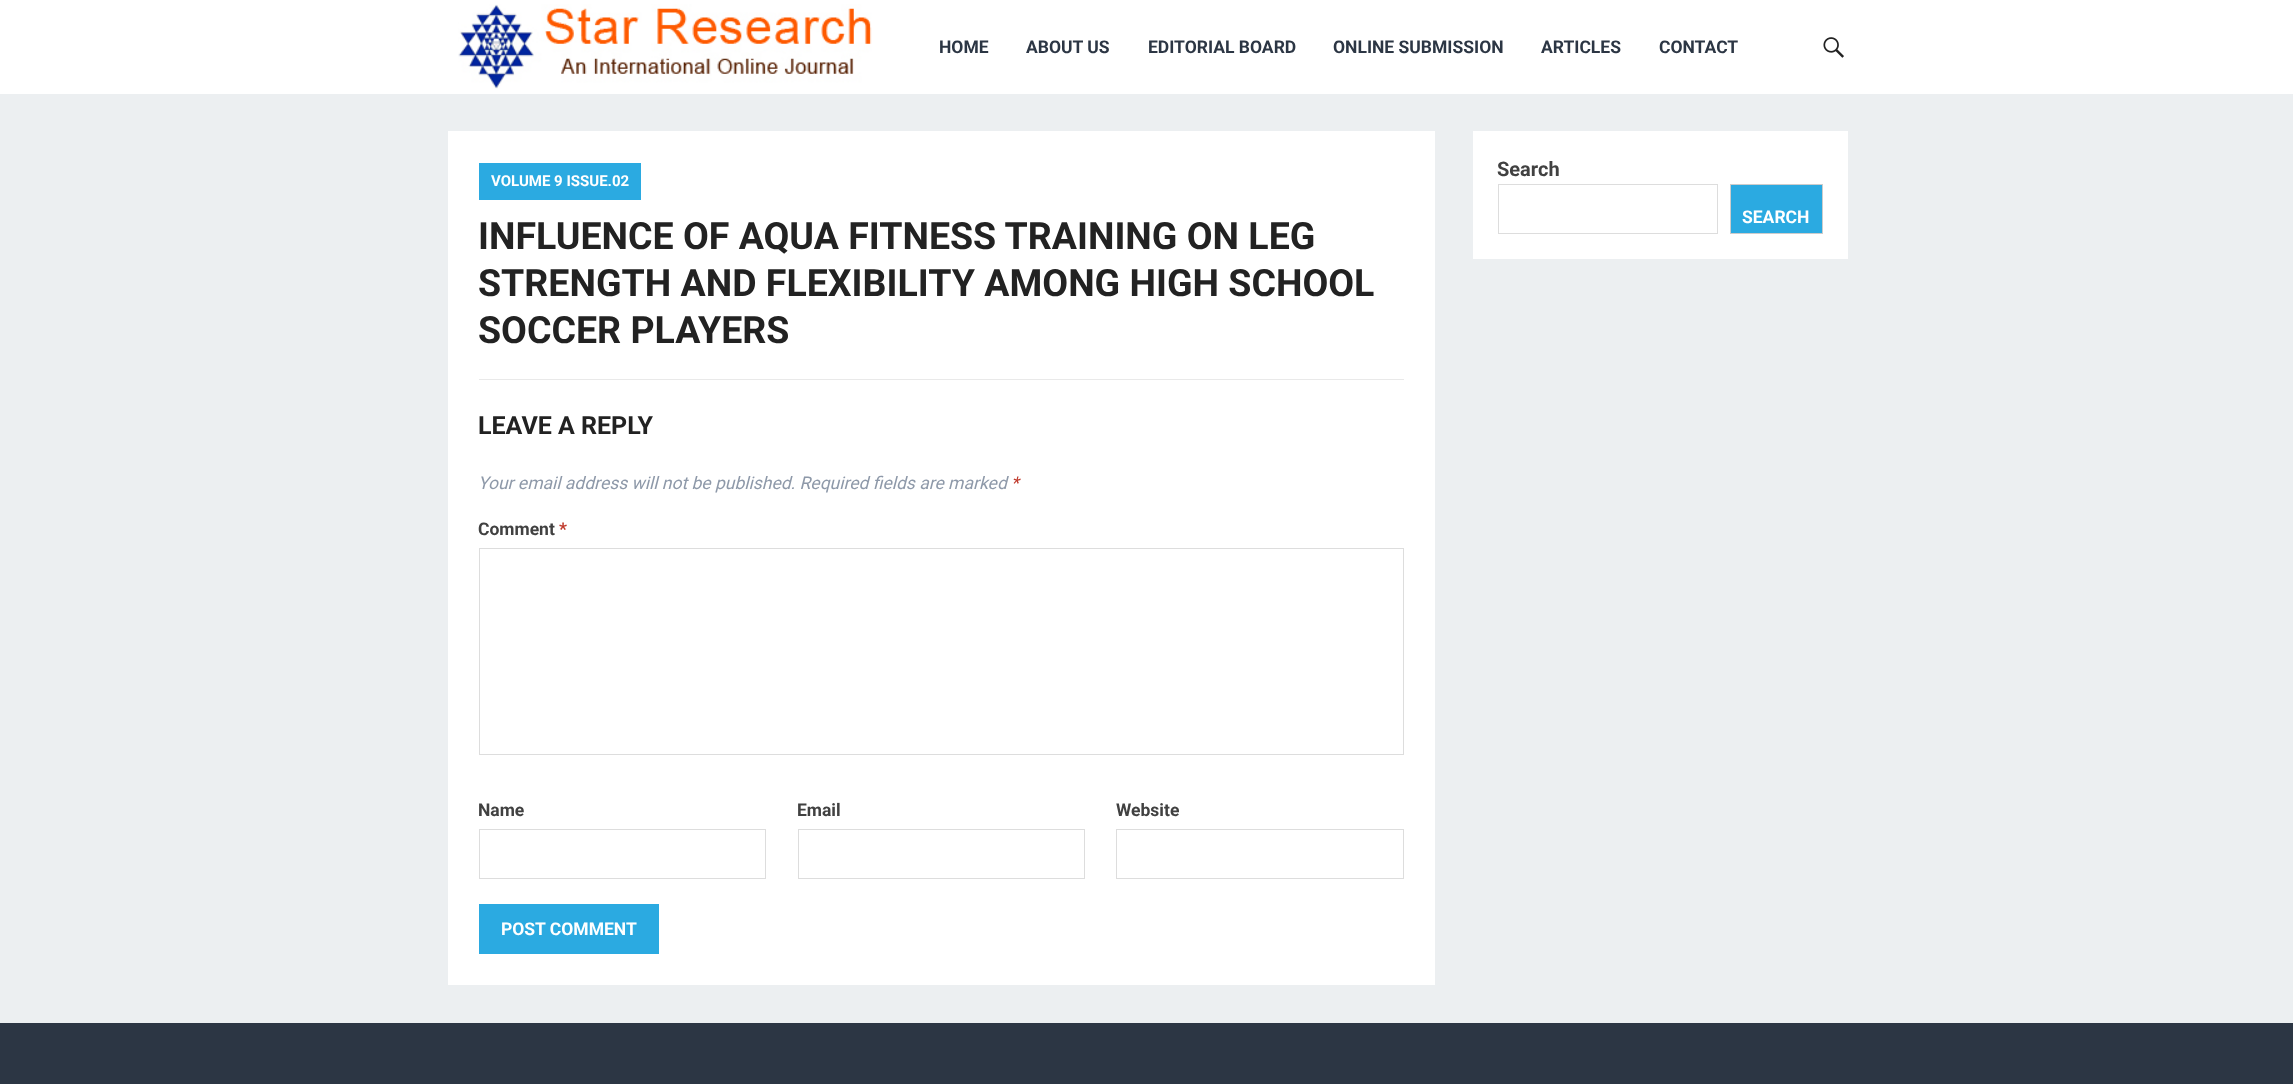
<svg xmlns="http://www.w3.org/2000/svg" width="2293" height="1084">
<rect width="100%" height="100%" fill="#eceff1"/>
<rect width="2293" height="94" fill="#fff"/>
<image x="458" y="4" width="414" height="85" href="media/1.png"/>
<text x="939" y="53" style="font-family:Roboto;font-size:17.5px;font-weight:bold;fill:#2c3644">HOME</text>
<text x="1026" y="53" style="font-family:Roboto;font-size:17.5px;font-weight:bold;fill:#2c3644">ABOUT US</text>
<text x="1148" y="53" style="font-family:Roboto;font-size:17.5px;font-weight:bold;fill:#2c3644">EDITORIAL BOARD</text>
<text x="1333" y="53" style="font-family:Roboto;font-size:17.5px;font-weight:bold;fill:#2c3644">ONLINE SUBMISSION</text>
<text x="1541" y="53" style="font-family:Roboto;font-size:17.5px;font-weight:bold;fill:#2c3644">ARTICLES</text>
<text x="1659" y="53" style="font-family:Roboto;font-size:17.5px;font-weight:bold;fill:#2c3644">CONTACT</text>
<image x="1823" y="37" width="21" height="21" href="media/2.png"/>
<rect x="448" y="131" width="987" height="854" fill="#fff"/>
<rect x="479" y="163" width="162" height="37" fill="#2baae1"/>
<text x="491" y="186" style="font-family:Roboto;font-size:15px;font-weight:bold;fill:#fff">VOLUME 9 ISSUE.02</text>
<text x="478" y="249" style="font-family:Roboto;font-size:37.5px;font-weight:bold;fill:#222">INFLUENCE OF AQUA FITNESS TRAINING ON LEG</text>
<text x="478" y="296" style="font-family:Roboto;font-size:37.5px;font-weight:bold;fill:#222">STRENGTH AND FLEXIBILITY AMONG HIGH SCHOOL</text>
<text x="478" y="343" style="font-family:Roboto;font-size:37.5px;font-weight:bold;fill:#222">SOCCER PLAYERS</text>
<rect x="479" y="379" width="925" height="1" fill="#e9e9e9"/>
<text x="478" y="434" style="font-family:Roboto;font-size:25px;font-weight:bold;fill:#222">LEAVE A REPLY</text>
<text x="478" y="489" style="font-family:Roboto;font-size:17.5px;font-style:italic;fill:#8e99a9">Your email address will not be published. Required fields are marked</text>
<text x="1011" y="489" style="font-family:Roboto;font-size:17.5px;font-style:italic;fill:#c0392b">*</text>
<text x="478" y="535" style="font-family:Roboto;font-size:17.5px;font-weight:bold;fill:#414141">Comment</text>
<text x="559" y="535" style="font-family:Roboto;font-size:17.5px;font-weight:bold;fill:#c0392b">*</text>
<rect x="479.5" y="548.5" width="924" height="206" fill="none" stroke="#ddd"/>
<text x="478" y="816" style="font-family:Roboto;font-size:17.5px;font-weight:bold;fill:#414141">Name</text>
<rect x="479.5" y="829.5" width="286" height="49" fill="none" stroke="#ddd"/>
<text x="797" y="816" style="font-family:Roboto;font-size:17.5px;font-weight:bold;fill:#414141">Email</text>
<rect x="798.5" y="829.5" width="286" height="49" fill="none" stroke="#ddd"/>
<text x="1116" y="816" style="font-family:Roboto;font-size:17.5px;font-weight:bold;fill:#414141">Website</text>
<rect x="1116.5" y="829.5" width="287" height="49" fill="none" stroke="#ddd"/>
<rect x="479" y="904" width="180" height="50" fill="#2baae1"/>
<text x="501" y="935" style="font-family:Roboto;font-size:17.5px;font-weight:bold;fill:#fff">POST COMMENT</text>
<rect x="1473" y="131" width="375" height="128" fill="#fff"/>
<text x="1497" y="176" style="font-family:Roboto;font-size:20px;font-weight:bold;fill:#414141">Search</text>
<rect x="1498.5" y="184.5" width="219" height="49" fill="none" stroke="#ddd"/>
<rect x="1730.5" y="184.5" width="92" height="49" fill="#2baae1" stroke="#ccc"/>
<text x="1742" y="223" style="font-family:Roboto;font-size:17.5px;font-weight:bold;fill:#fff">SEARCH</text>
<rect y="1023" width="2293" height="61" fill="#2c3644"/>
</svg>
